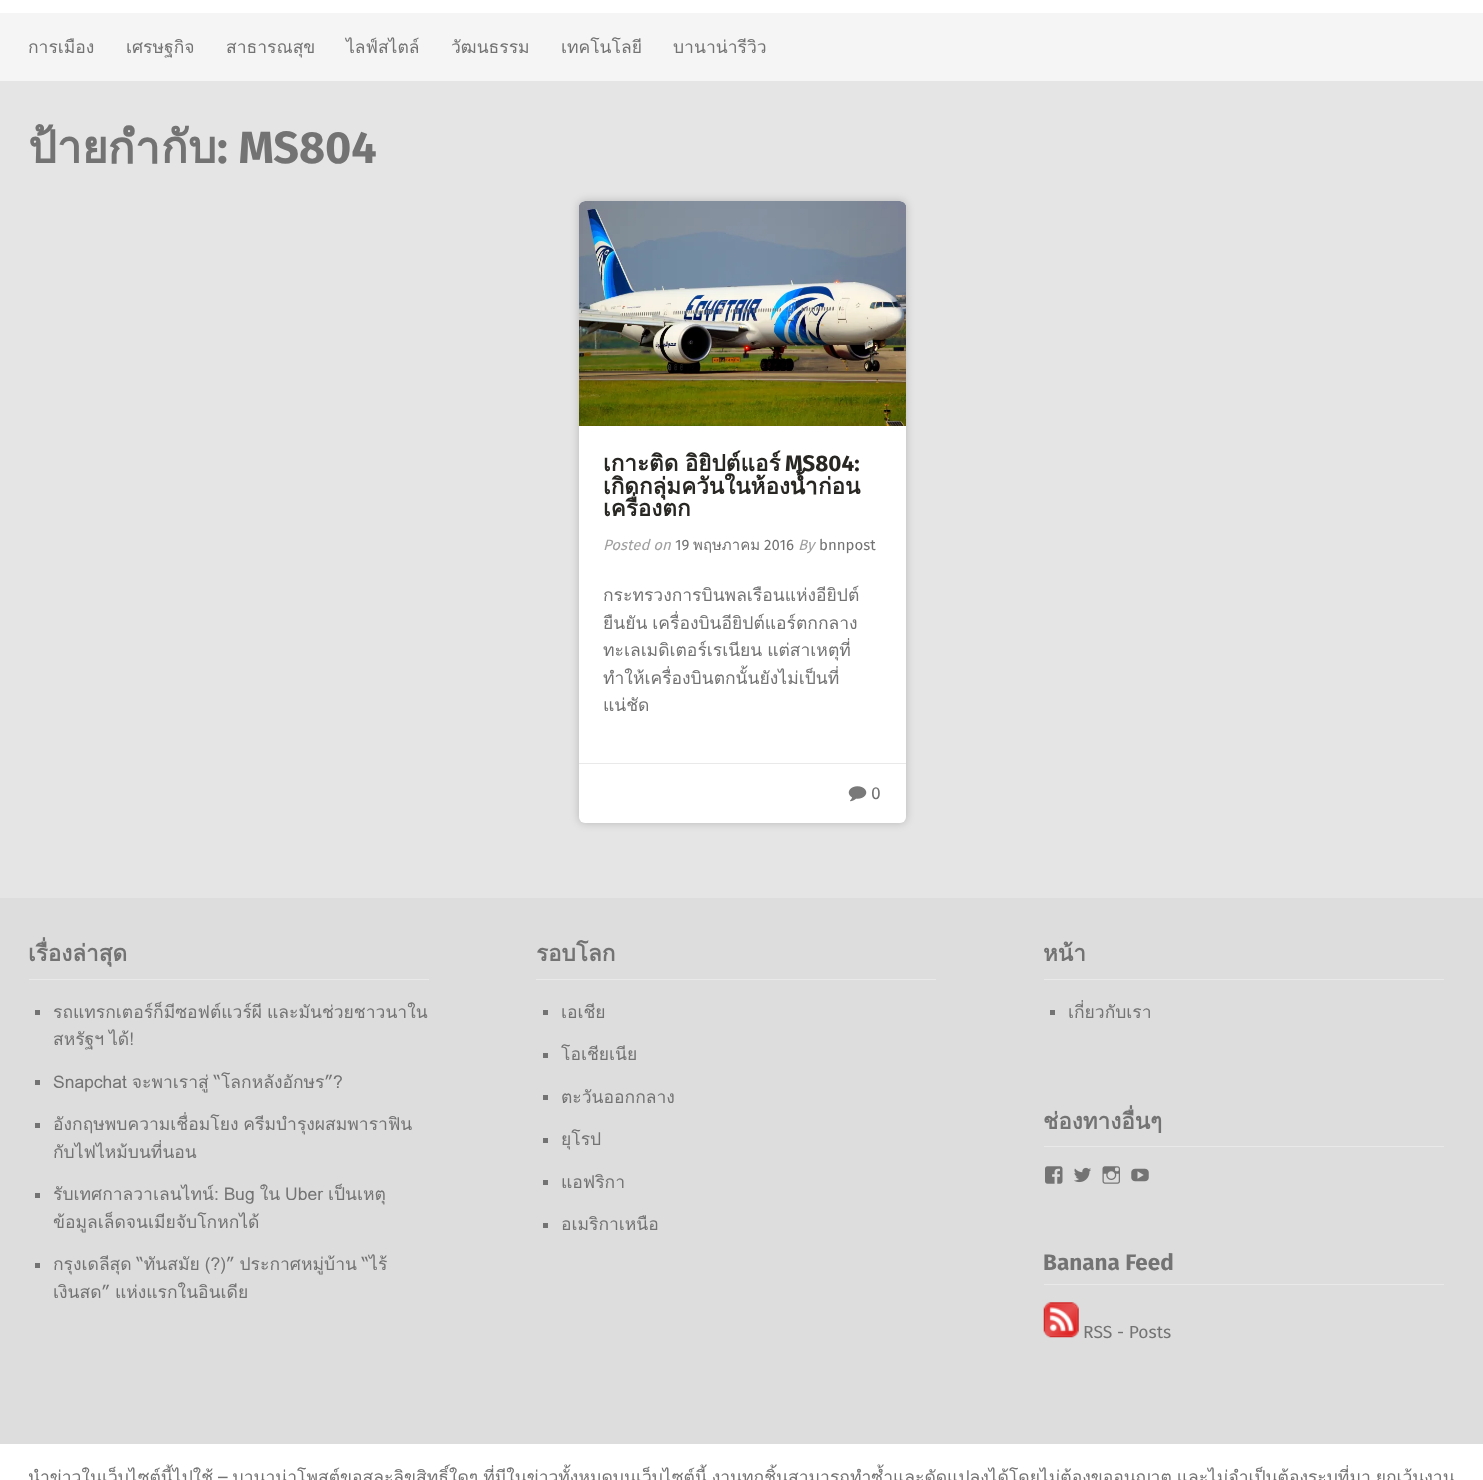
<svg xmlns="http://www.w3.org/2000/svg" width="1483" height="1480">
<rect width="100%" height="100%" fill="#e5e5e5"/>
<rect width="1483" height="13" fill="#fff"/>
<rect y="13" width="1483" height="68" fill="#f5f5f5"/>
<text x="28" y="53" style="font-family:Loma;font-size:17.5px;fill:#737373">การเมือง</text>
<text x="126" y="53" style="font-family:Loma;font-size:17.5px;fill:#737373">เศรษฐกิจ</text>
<text x="226" y="53" style="font-family:Loma;font-size:17.5px;fill:#737373">สาธารณสุข</text>
<text x="346" y="53" style="font-family:Loma;font-size:17.5px;fill:#737373">ไลฟ์สไตล์</text>
<text x="451" y="53" style="font-family:Loma;font-size:17.5px;fill:#737373">วัฒนธรรม</text>
<text x="561" y="53" style="font-family:Loma;font-size:17.5px;fill:#737373">เทคโนโลยี</text>
<text x="673" y="53" style="font-family:Loma;font-size:17.5px;fill:#737373">บานาน่ารีวิว</text>
<text x="28" y="163" style="font-family:Loma;font-size:45px;font-weight:bold;fill:#737373">ป้ายกำกับ</text>
<text x="217" y="163" style="font-family:Fira Sans;font-size:45px;font-weight:bold;fill:#737373">: MS804</text>
<rect x="579" y="201" width="327" height="622" rx="6" fill="#00000033" filter="blur(4px)"/>
<rect x="579" y="201" width="327" height="622" rx="6" fill="#fff"/>
<image x="579" y="201" width="327" height="225" href="media/1.png"/>
<text x="603" y="471" word-spacing="-1" style="font-family:Loma;font-size:22.5px;font-weight:bold;fill:#282724">เกาะติด อิยิปต์แอร์</text>
<text x="785" y="471" style="font-family:Fira Sans;font-size:22.5px;font-weight:bold;fill:#282724">MS804:</text>
<text x="603" y="494" style="font-family:Loma;font-size:22.5px;font-weight:bold;fill:#282724">เกิดกลุ่มควันในห้องน้ำก่อน</text>
<text x="603" y="516" style="font-family:Loma;font-size:22.5px;font-weight:bold;fill:#282724">เครื่องตก</text>
<text x="603" y="550" style="font-family:Fira Sans;font-size:15px;font-style:italic;fill:#a0a0a0">Posted on</text>
<text x="675" y="550" style="font-family:Fira Sans;font-size:15px;fill:#737373">19</text>
<text x="693" y="550" style="font-family:Loma;font-size:15px;fill:#737373">พฤษภาคม</text>
<text x="764" y="550" style="font-family:Fira Sans;font-size:15px;fill:#737373">2016</text>
<text x="798" y="550" style="font-family:Fira Sans;font-size:15px;font-style:italic;fill:#a0a0a0">By</text>
<text x="819" y="550" style="font-family:Fira Sans;font-size:15px;fill:#737373">bnnpost</text>
<text x="603" y="601" style="font-family:Loma;font-size:17.5px;fill:#737373">กระทรวงการบินพลเรือนแห่งอียิปต์</text>
<text x="603" y="629" word-spacing="-1" style="font-family:Loma;font-size:17.5px;fill:#737373">ยืนยัน เครื่องบินอียิปต์แอร์ตกกลาง</text>
<text x="603" y="656" word-spacing="-1" style="font-family:Loma;font-size:17.5px;fill:#737373">ทะเลเมดิเตอร์เรเนียน แต่สาเหตุที่</text>
<text x="603" y="684" style="font-family:Loma;font-size:17.5px;fill:#737373">ทำให้เครื่องบินตกนั้นยังไม่เป็นที่</text>
<text x="603" y="711" style="font-family:Loma;font-size:17.5px;fill:#737373">แน่ชัด</text>
<rect x="579" y="763" width="327" height="1" fill="#e9e9e9"/>
<image x="848" y="786" width="19" height="16" href="media/2.png"/>
<text x="871" y="799" style="font-family:Fira Sans;font-size:17.5px;fill:#737373">0</text>
<rect y="898" width="1483" height="546" fill="#ddd"/>
<rect x="29" y="979" width="400" height="1" fill="#e9e9e9"/>
<text x="28" y="961" style="font-family:Loma;font-size:22.5px;font-weight:bold;fill:#737373">เรื่องล่าสุด</text>
<rect x="35" y="1010" width="5" height="5" fill="#737373"/>
<text x="53" y="1018" word-spacing="-1" style="font-family:Loma;font-size:17.5px;fill:#737373">รถแทรกเตอร์ก็มีซอฟต์แวร์ผี และมันช่วยชาวนาใน</text>
<text x="53" y="1045" word-spacing="-1" style="font-family:Loma;font-size:17.5px;fill:#737373">สหรัฐฯ ได้!</text>
<rect x="35" y="1080" width="5" height="5" fill="#737373"/>
<text x="53" y="1088" word-spacing="-1" style="font-family:Loma;font-size:17.5px;fill:#737373">Snapchat จะพาเราสู่ “โลกหลังอักษร”?</text>
<rect x="35" y="1123" width="5" height="5" fill="#737373"/>
<text x="53" y="1130" word-spacing="-1" style="font-family:Loma;font-size:17.5px;fill:#737373">อังกฤษพบความเชื่อมโยง ครีมบำรุงผสมพาราฟิน</text>
<text x="53" y="1158" style="font-family:Loma;font-size:17.5px;fill:#737373">กับไฟไหม้บนที่นอน</text>
<rect x="35" y="1193" width="5" height="5" fill="#737373"/>
<text x="53" y="1200" word-spacing="-1" style="font-family:Loma;font-size:17.5px;fill:#737373">รับเทศกาลวาเลนไทน์: Bug ใน Uber เป็นเหตุ</text>
<text x="53" y="1228" style="font-family:Loma;font-size:17.5px;fill:#737373">ข้อมูลเล็ดจนเมียจับโกหกได้</text>
<rect x="35" y="1263" width="5" height="5" fill="#737373"/>
<text x="53" y="1270" word-spacing="-1" style="font-family:Loma;font-size:17.5px;fill:#737373">กรุงเดลีสุด “ทันสมัย (?)” ประกาศหมู่บ้าน “ไร้</text>
<text x="53" y="1298" word-spacing="-1" style="font-family:Loma;font-size:17.5px;fill:#737373">เงินสด” แห่งแรกในอินเดีย</text>
<rect x="536" y="979" width="400" height="1" fill="#e9e9e9"/>
<text x="536" y="961" style="font-family:Loma;font-size:22.5px;font-weight:bold;fill:#737373">รอบโลก</text>
<rect x="543" y="1010" width="5" height="5" fill="#737373"/>
<text x="561" y="1018" style="font-family:Loma;font-size:17.5px;fill:#737373">เอเชีย</text>
<rect x="543" y="1053" width="5" height="5" fill="#737373"/>
<text x="561" y="1060" style="font-family:Loma;font-size:17.5px;fill:#737373">โอเชียเนีย</text>
<rect x="543" y="1095" width="5" height="5" fill="#737373"/>
<text x="561" y="1103" style="font-family:Loma;font-size:17.5px;fill:#737373">ตะวันออกกลาง</text>
<rect x="543" y="1138" width="5" height="5" fill="#737373"/>
<text x="561" y="1145" style="font-family:Loma;font-size:17.5px;fill:#737373">ยุโรป</text>
<rect x="543" y="1180" width="5" height="5" fill="#737373"/>
<text x="561" y="1188" style="font-family:Loma;font-size:17.5px;fill:#737373">แอฟริกา</text>
<rect x="543" y="1223" width="5" height="5" fill="#737373"/>
<text x="561" y="1230" style="font-family:Loma;font-size:17.5px;fill:#737373">อเมริกาเหนือ</text>
<rect x="1044" y="979" width="400" height="1" fill="#e9e9e9"/>
<text x="1043" y="961" style="font-family:Loma;font-size:22.5px;font-weight:bold;fill:#737373">หน้า</text>
<rect x="1050" y="1010" width="5" height="5" fill="#737373"/>
<text x="1068" y="1018" style="font-family:Loma;font-size:17.5px;fill:#737373">เกี่ยวกับเรา</text>
<rect x="1044" y="1146" width="400" height="1" fill="#e9e9e9"/>
<text x="1043" y="1129" style="font-family:Loma;font-size:22.5px;font-weight:bold;fill:#737373">ช่องทางอื่นๆ</text>
<image x="1045" y="1166" width="18" height="18" href="media/3.png"/>
<image x="1074" y="1167" width="17" height="16" href="media/4.png"/>
<image x="1102" y="1166" width="18" height="18" href="media/5.png"/>
<image x="1131" y="1168" width="18" height="14" href="media/6.png"/>
<rect x="1044" y="1284" width="400" height="1" fill="#e9e9e9"/>
<text x="1043" y="1270" style="font-family:Fira Sans;font-size:22.5px;font-weight:bold;fill:#737373">Banana Feed</text>
<image x="1043" y="1302" width="36" height="36" href="media/7.png"/>
<text x="1083" y="1338" style="font-family:Fira Sans;font-size:17.5px;fill:#737373">RSS - Posts</text>
<rect y="1444" width="1483" height="36" fill="#fff"/>
<text x="28" y="1483" word-spacing="-1" style="font-family:Loma;font-size:17.5px;fill:#737373">นำข่าวในเว็บไซต์นี้ไปใช้ – บานาน่าโพสต์ขอสละลิขสิทธิ์ใดๆ ที่มีในข่าวทั้งหมดบนเว็บไซต์นี้ งานทุกชิ้นสามารถทำซ้ำและดัดแปลงได้โดยไม่ต้องขออนุญาต และไม่จำเป็นต้องระบุที่มา ยกเว้นงาน</text>
</svg>
